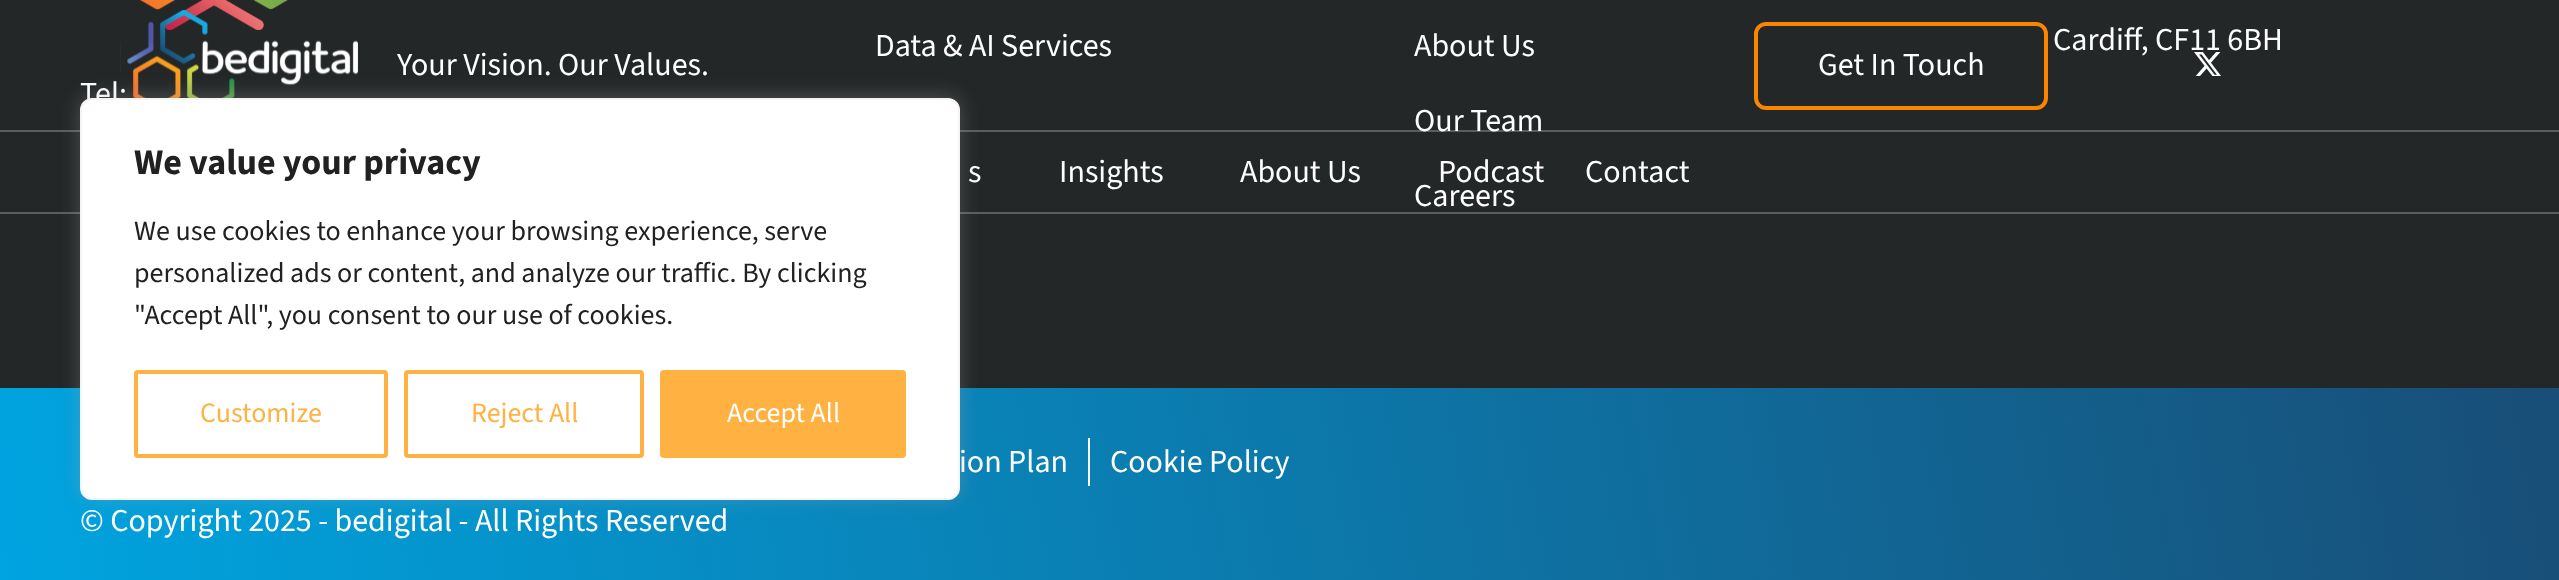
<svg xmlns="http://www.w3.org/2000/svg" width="2559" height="580">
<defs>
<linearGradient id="g1" gradientUnits="userSpaceOnUse" x1="21" y1="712" x2="2539" y2="268"><stop offset="0" stop-color="#00a4e0"/><stop offset="1" stop-color="#184e77"/></linearGradient>
</defs>
<rect width="100%" height="100%" fill="#242728"/>
<image x="139" y="0" width="149" height="30" href="media/1.png"/>
<text x="80" y="104" style="font-family:'Source Sans 3';font-size:32px;fill:#fff">Tel:</text>
<text x="875" y="56" style="font-family:'Source Sans 3';font-size:32px;fill:#fff">Data &amp; AI Services</text>
<text x="1414" y="56" style="font-family:'Source Sans 3';font-size:32px;fill:#fff">About Us</text>
<text x="1414" y="131" style="font-family:'Source Sans 3';font-size:32px;fill:#fff">Our Team</text>
<text x="1414" y="206" style="font-family:'Source Sans 3';font-size:32px;fill:#fff">Careers</text>
<text x="2053" y="50" style="font-family:'Source Sans 3';font-size:32px;fill:#fff">Cardiff, CF11 6BH</text>
<image x="120" y="10" width="238" height="88" href="media/2.png"/>
<text x="397" y="75" style="font-family:'Source Sans 3';font-size:32px;fill:#fff">Your Vision. Our Values.</text>
<rect x="1756" y="24" width="290" height="84" rx="10" fill="none" stroke="#fb8500" stroke-width="4"/>
<text x="1818" y="75" style="font-family:'Source Sans 3';font-size:32px;fill:#fff">Get In Touch</text>
<image x="2194" y="52" width="27" height="24" href="media/3.png"/>
<rect y="130" width="2559" height="2" fill="#ffffff40"/>
<rect y="212" width="2559" height="2" fill="#5b5d5e"/>
<text x="968" y="182" style="font-family:'Source Sans 3';font-size:32px;fill:#fff">s</text>
<text x="1059" y="182" style="font-family:'Source Sans 3';font-size:32px;fill:#fff">Insights</text>
<text x="1240" y="182" style="font-family:'Source Sans 3';font-size:32px;fill:#fff">About Us</text>
<text x="1438" y="182" style="font-family:'Source Sans 3';font-size:32px;fill:#fff">Podcast</text>
<text x="1585" y="182" style="font-family:'Source Sans 3';font-size:32px;fill:#fff">Contact</text>
<rect y="388" width="2559" height="192" fill="url(#g1)"/>
<text x="959" y="472" style="font-family:'Source Sans 3';font-size:32px;fill:#fff">ion Plan</text>
<rect x="1088" y="438" width="2" height="48" fill="#fff"/>
<text x="1110" y="472" style="font-family:'Source Sans 3';font-size:32px;fill:#fff">Cookie Policy</text>
<text x="80" y="531" style="font-family:'Source Sans 3';font-size:32px;fill:#fff">© Copyright 2025 - bedigital - All Rights Reserved</text>
<rect x="80" y="96" width="880" height="402" rx="12" fill="#acabab4d" filter="blur(10px)"/>
<rect x="81" y="99" width="878" height="400" rx="11" fill="#fff" stroke="#f4f4f4" stroke-width="2"/>
<text x="134" y="174" style="font-family:'Source Sans 3';font-size:36px;font-weight:bold;fill:#212121">We value your privacy</text>
<text x="134" y="240" style="font-family:'Source Sans 3';font-size:28px;fill:#212121">We use cookies to enhance your browsing experience, serve</text>
<text x="134" y="282" style="font-family:'Source Sans 3';font-size:28px;fill:#212121">personalized ads or content, and analyze our traffic. By clicking</text>
<text x="134" y="324" style="font-family:'Source Sans 3';font-size:28px;fill:#212121">"Accept All", you consent to our use of cookies.</text>
<rect x="136" y="372" width="250" height="84" rx="2" fill="none" stroke="#ffb142" stroke-width="4"/>
<text x="200" y="422" style="font-family:'Source Sans 3';font-size:28px;fill:#ffb142">Customize</text>
<rect x="406" y="372" width="236" height="84" rx="2" fill="none" stroke="#ffb142" stroke-width="4"/>
<text x="471" y="422" style="font-family:'Source Sans 3';font-size:28px;fill:#ffb142">Reject All</text>
<rect x="662" y="372" width="242" height="84" rx="2" fill="#ffb142" stroke="#ffb142" stroke-width="4"/>
<text x="727" y="422" style="font-family:'Source Sans 3';font-size:28px;fill:#fff">Accept All</text>
</svg>
